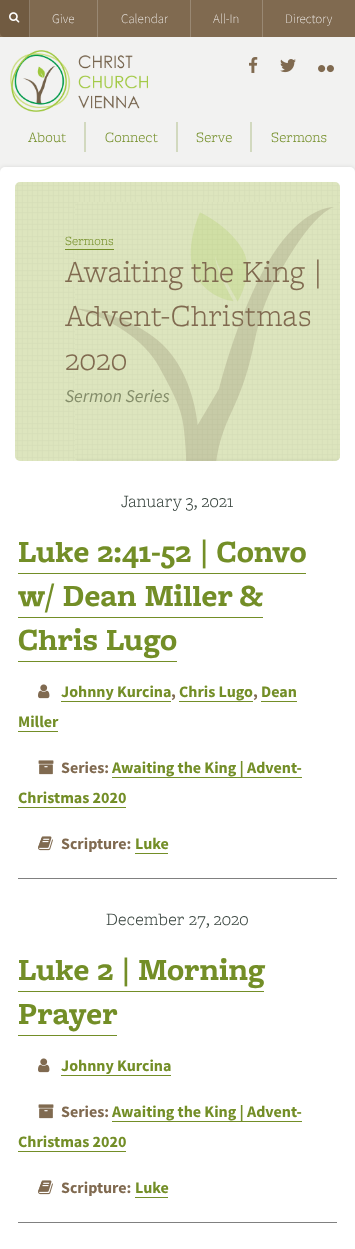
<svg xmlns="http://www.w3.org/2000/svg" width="355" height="1249">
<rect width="100%" height="100%" fill="#f2f2f1"/>
<rect width="355" height="37" fill="#806a50"/>
<path d="M0 0h30v37h-25c-3 0-5-2-5-5z" fill="#715b41"/>
<rect x="29" width="1" height="37" fill="#8d7c67"/>
<image x="9" y="12" width="11" height="11" href="media/1.png"/>
<rect x="97" width="1" height="37" fill="#998873"/>
<text x="52" y="23" style="font-family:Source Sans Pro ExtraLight;font-size:13px;font-weight:200;fill:#fff">Give</text>
<rect x="190" width="1" height="37" fill="#998873"/>
<text x="121" y="23" style="font-family:Source Sans Pro ExtraLight;font-size:13px;font-weight:200;fill:#fff">Calendar</text>
<rect x="262" width="1" height="37" fill="#998873"/>
<text x="213" y="23" style="font-family:Source Sans Pro ExtraLight;font-size:13px;font-weight:200;fill:#fff">All-In</text>
<text x="285" y="23" style="font-family:Source Sans Pro ExtraLight;font-size:13px;font-weight:200;fill:#fff">Directory</text>
<image x="249" y="57" width="9" height="16" href="media/2.png"/>
<image x="280" y="59" width="16" height="14" href="media/3.png"/>
<image x="318" y="65" width="16" height="8" href="media/4.png"/>
<image x="10" y="50" width="138" height="62" href="media/5.png"/>
<rect x="84" y="122" width="2" height="30" fill="#d2d9bf"/>
<text x="28" y="142" style="font-family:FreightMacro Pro;font-size:15px;font-weight:300;fill:#738e27">About</text>
<rect x="176" y="122" width="2" height="30" fill="#d2d9bf"/>
<text x="105" y="142" style="font-family:FreightMacro Pro;font-size:15px;font-weight:300;fill:#738e27">Connect</text>
<rect x="250" y="122" width="2" height="30" fill="#d2d9bf"/>
<text x="196" y="142" style="font-family:FreightMacro Pro;font-size:15px;font-weight:300;fill:#738e27">Serve</text>
<text x="271" y="142" style="font-family:FreightMacro Pro;font-size:15px;font-weight:300;fill:#738e27">Sermons</text>
<rect y="167" width="355" height="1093" rx="5" fill="#0000001a" filter="blur(2px)"/>
<rect y="167" width="355" height="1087" rx="5" fill="#fff"/>
<image x="15" y="182" width="325" height="279" href="media/6.png"/>
<image x="75" y="202" width="265" height="259" href="media/7.png"/>
<text x="65" y="245" style="font-family:FreightMacro Pro;font-size:13px;font-weight:300;fill:#738e27">Sermons</text>
<rect x="65" y="249" width="49" height="1" fill="#738e27"/>
<text x="65" y="282" style="font-family:FreightMacro Pro;font-size:32px;font-weight:300;fill:#806a50">Awaiting the King |</text>
<text x="65" y="326" style="font-family:FreightMacro Pro;font-size:32px;font-weight:300;fill:#806a50">Advent-Christmas</text>
<text x="65" y="370" style="font-family:FreightMacro Pro;font-size:32px;font-weight:300;fill:#806a50">2020</text>
<text x="65" y="402" style="font-family:Source Sans Pro;font-size:18px;font-style:italic;fill:#838c69">Sermon Series</text>
<rect x="18" y="878" width="319" height="1" fill="#808080"/>
<text x="121" y="507" style="font-family:FreightMacro Pro;font-size:18px;font-weight:300;fill:#37433d">January 3, 2021</text>
<text x="18" y="562" style="font-family:FreightMacro Pro;font-size:32px;font-weight:bold;fill:#738e27">Luke 2:41-52 | Convo</text>
<rect x="18" y="573" width="288" height="1" fill="#738e27"/>
<text x="18" y="606" style="font-family:FreightMacro Pro;font-size:32px;font-weight:bold;fill:#738e27">w/ Dean Miller &amp;</text>
<rect x="18" y="617" width="245" height="1" fill="#738e27"/>
<text x="18" y="650" style="font-family:FreightMacro Pro;font-size:32px;font-weight:bold;fill:#738e27">Chris Lugo</text>
<rect x="18" y="661" width="159" height="1" fill="#738e27"/>
<image x="38" y="684" width="12" height="15" href="media/8.png"/>
<text x="61" y="697" style="font-family:Source Sans Pro;font-size:16px;font-weight:bold;fill:#738e27">Johnny Kurcina</text>
<rect x="61" y="701" width="110" height="1" fill="#738e27"/>
<text x="171" y="697" style="font-family:Source Sans Pro;font-size:16px;font-weight:bold;fill:#806a50">,</text>
<text x="179" y="697" style="font-family:Source Sans Pro;font-size:16px;font-weight:bold;fill:#738e27">Chris Lugo</text>
<rect x="179" y="701" width="74" height="1" fill="#738e27"/>
<text x="253" y="697" style="font-family:Source Sans Pro;font-size:16px;font-weight:bold;fill:#806a50">,</text>
<text x="261" y="697" style="font-family:Source Sans Pro;font-size:16px;font-weight:bold;fill:#738e27">Dean</text>
<rect x="261" y="701" width="36" height="1" fill="#738e27"/>
<text x="18" y="727" style="font-family:Source Sans Pro;font-size:16px;font-weight:bold;fill:#738e27">Miller</text>
<rect x="18" y="731" width="40" height="1" fill="#738e27"/>
<image x="38" y="760" width="16" height="15" href="media/9.png"/>
<text x="61" y="773" style="font-family:Source Sans Pro;font-size:16px;font-weight:bold;fill:#806a50">Series:</text>
<text x="112" y="773" style="font-family:Source Sans Pro;font-size:16px;font-weight:bold;fill:#738e27">Awaiting the King | Advent-</text>
<rect x="112" y="777" width="190" height="1" fill="#738e27"/>
<text x="18" y="803" style="font-family:Source Sans Pro;font-size:16px;font-weight:bold;fill:#738e27">Christmas 2020</text>
<rect x="18" y="807" width="108" height="1" fill="#738e27"/>
<image x="38" y="836" width="15" height="15" href="media/10.png"/>
<text x="61" y="849" style="font-family:Source Sans Pro;font-size:16px;font-weight:bold;fill:#806a50">Scripture:</text>
<text x="135" y="849" style="font-family:Source Sans Pro;font-size:16px;font-weight:bold;fill:#738e27">Luke</text>
<rect x="135" y="853" width="33" height="1" fill="#738e27"/>
<rect x="18" y="1222" width="319" height="1" fill="#808080"/>
<text x="106" y="925" style="font-family:FreightMacro Pro;font-size:18px;font-weight:300;fill:#37433d">December 27, 2020</text>
<text x="18" y="980" style="font-family:FreightMacro Pro;font-size:32px;font-weight:bold;fill:#738e27">Luke 2 | Morning</text>
<rect x="18" y="991" width="246" height="1" fill="#738e27"/>
<text x="18" y="1024" style="font-family:FreightMacro Pro;font-size:32px;font-weight:bold;fill:#738e27">Prayer</text>
<rect x="18" y="1035" width="99" height="1" fill="#738e27"/>
<image x="38" y="1058" width="12" height="15" href="media/8.png"/>
<text x="61" y="1071" style="font-family:Source Sans Pro;font-size:16px;font-weight:bold;fill:#738e27">Johnny Kurcina</text>
<rect x="61" y="1075" width="110" height="1" fill="#738e27"/>
<image x="38" y="1104" width="16" height="15" href="media/9.png"/>
<text x="61" y="1117" style="font-family:Source Sans Pro;font-size:16px;font-weight:bold;fill:#806a50">Series:</text>
<text x="112" y="1117" style="font-family:Source Sans Pro;font-size:16px;font-weight:bold;fill:#738e27">Awaiting the King | Advent-</text>
<rect x="112" y="1121" width="190" height="1" fill="#738e27"/>
<text x="18" y="1147" style="font-family:Source Sans Pro;font-size:16px;font-weight:bold;fill:#738e27">Christmas 2020</text>
<rect x="18" y="1151" width="108" height="1" fill="#738e27"/>
<image x="38" y="1180" width="15" height="15" href="media/10.png"/>
<text x="61" y="1193" style="font-family:Source Sans Pro;font-size:16px;font-weight:bold;fill:#806a50">Scripture:</text>
<text x="135" y="1193" style="font-family:Source Sans Pro;font-size:16px;font-weight:bold;fill:#738e27">Luke</text>
<rect x="135" y="1197" width="33" height="1" fill="#738e27"/>
</svg>
